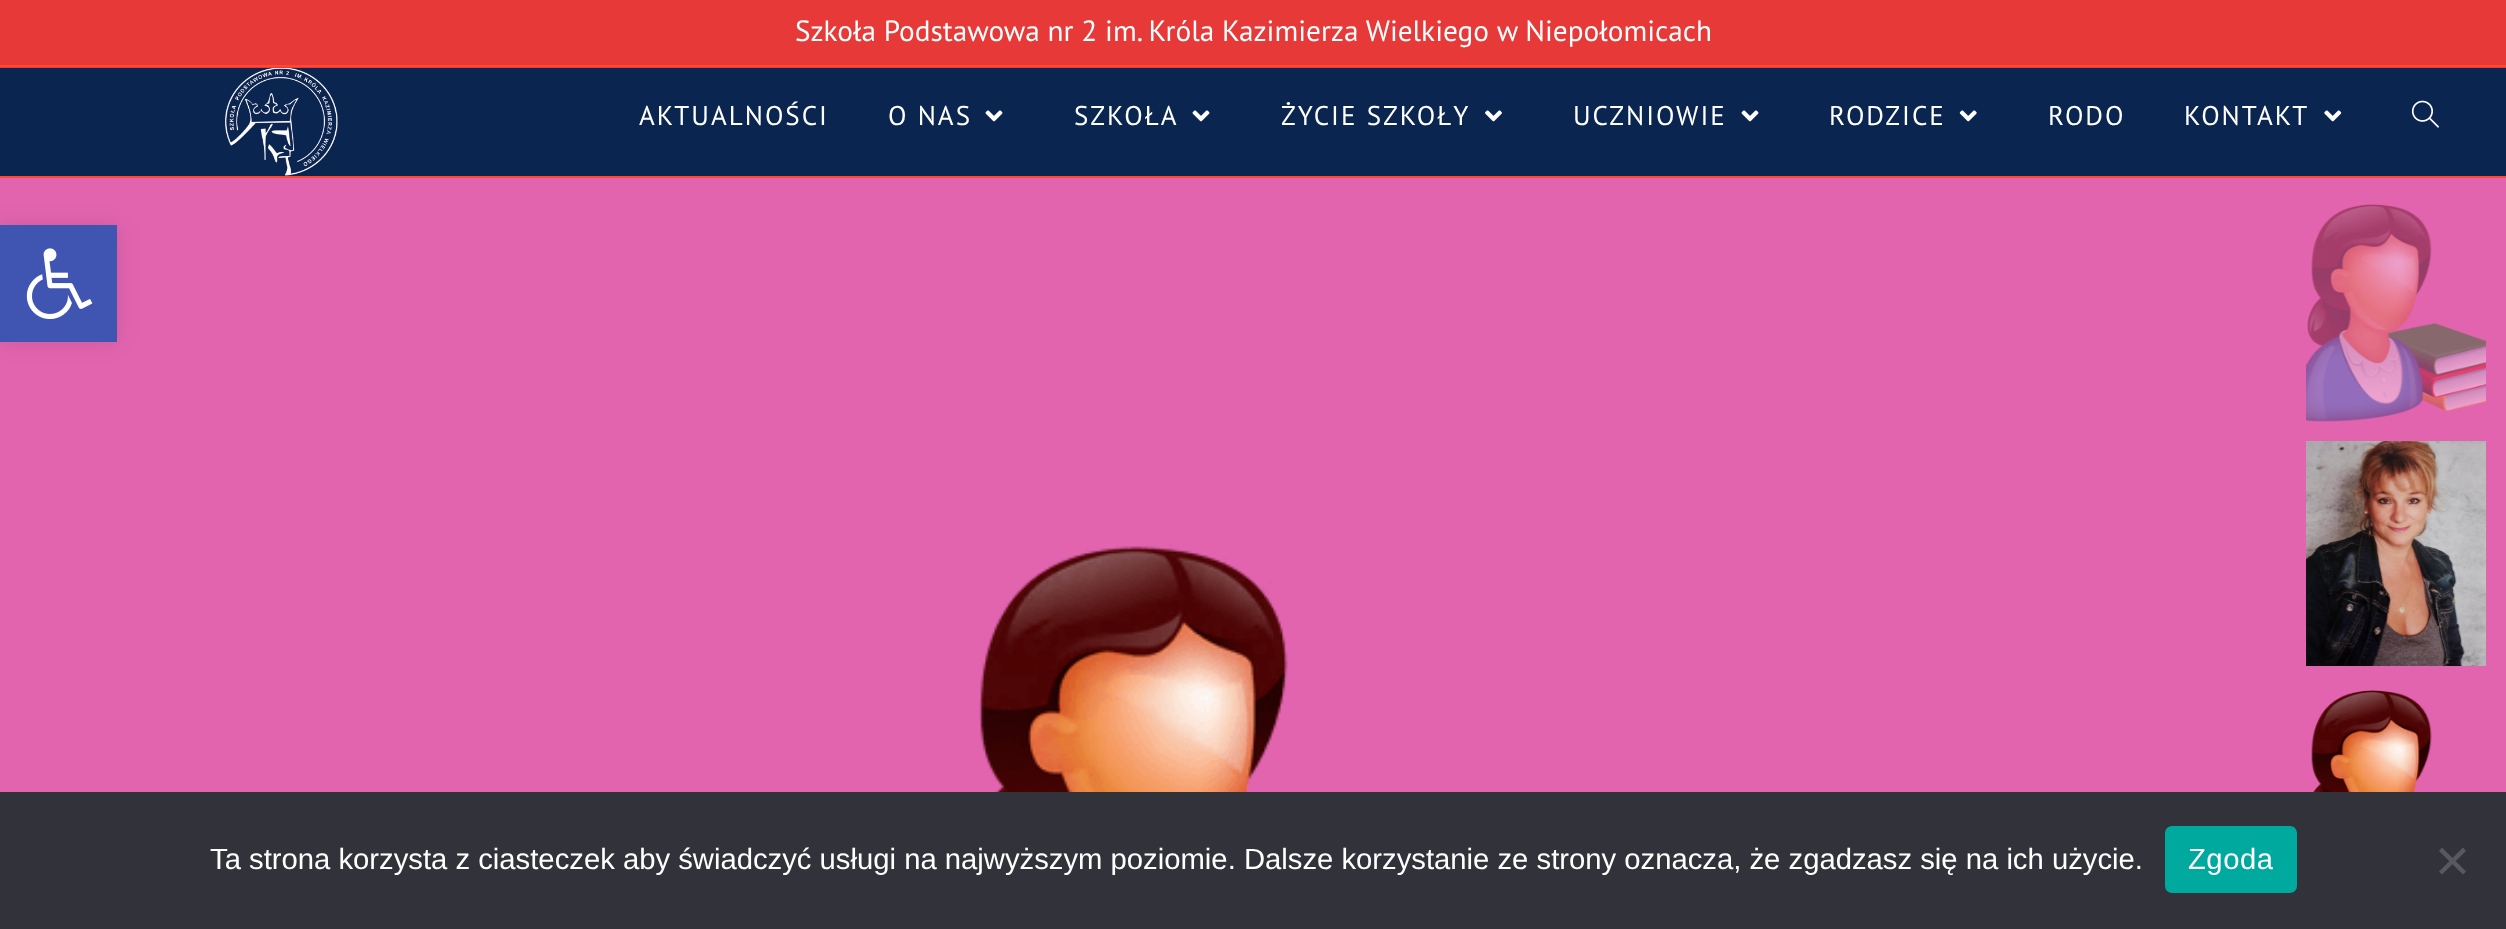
<svg xmlns="http://www.w3.org/2000/svg" width="2506" height="929">
<rect width="100%" height="100%" fill="#e264af"/>
<rect width="2506" height="68" fill="#e83939"/>
<rect y="65" width="2506" height="2" fill="#ff482f"/>
<text x="795" y="41" style="font-family:PT Sans;font-size:29.25px;fill:#fff">Szkoła Podstawowa nr 2 im. Króla Kazimierza Wielkiego w Niepołomicach</text>
<rect y="176" width="2506" height="2" fill="#ff482f"/>
<rect y="68" width="2506" height="108" fill="#0a254f"/>
<image x="225" y="68" width="113" height="108" href="media/1.png"/>
<text x="639" y="125" style="font-family:PT Sans;font-size:27px;letter-spacing:2px;fill:#fff">AKTUALNOŚCI</text>
<text x="888" y="125" style="font-family:PT Sans;font-size:27px;letter-spacing:2px;fill:#fff">O NAS</text>
<image x="985" y="110" width="18" height="12" href="media/2.png"/>
<text x="1074" y="125" style="font-family:PT Sans;font-size:27px;letter-spacing:2px;fill:#fff">SZKOŁA</text>
<image x="1192" y="110" width="18" height="12" href="media/2.png"/>
<text x="1281" y="125" style="font-family:PT Sans;font-size:27px;letter-spacing:2px;fill:#fff">ŻYCIE SZKOŁY</text>
<image x="1485" y="110" width="17" height="12" href="media/3.png"/>
<text x="1573" y="125" style="font-family:PT Sans;font-size:27px;letter-spacing:2px;fill:#fff">UCZNIOWIE</text>
<image x="1741" y="110" width="18" height="12" href="media/2.png"/>
<text x="1829" y="125" style="font-family:PT Sans;font-size:27px;letter-spacing:2px;fill:#fff">RODZICE</text>
<image x="1959" y="110" width="18" height="12" href="media/4.png"/>
<text x="2048" y="125" style="font-family:PT Sans;font-size:27px;letter-spacing:2px;fill:#fff">RODO</text>
<text x="2184" y="125" style="font-family:PT Sans;font-size:27px;letter-spacing:2px;fill:#fff">KONTAKT</text>
<image x="2324" y="110" width="18" height="12" href="media/5.png"/>
<image x="2411" y="100" width="28" height="28" href="media/6.png"/>
<image x="978" y="544" width="310" height="248" href="media/7.png"/>
<image x="2306" y="204" width="180" height="218" href="media/8.png"/>
<image x="2306" y="441" width="180" height="225" href="media/9.png"/>
<image x="2311" y="690" width="121" height="102" href="media/10.png"/>
<rect y="225" width="117" height="117" fill="#0000001a" filter="blur(11px)"/>
<rect y="225" width="117" height="117" fill="#4054b2"/>
<image x="26" y="248" width="67" height="72" href="media/11.png"/>
<rect y="792" width="2506" height="137" fill="#32323a"/>
<text x="210" y="869" style="font-family:Liberation Sans;font-size:29.25px;fill:#fff">Ta strona korzysta z ciasteczek aby świadczyć usługi na najwyższym poziomie. Dalsze korzystanie ze strony oznacza, że zgadzasz się na ich użycie.</text>
<rect x="2165" y="826" width="132" height="67" rx="7" fill="#00a99d"/>
<text x="2188" y="869" style="font-family:Liberation Sans;font-size:29.25px;letter-spacing:0.5px;fill:#fff">Zgoda</text>
<path d="M2463 847.5l3 3.5l-24 23.5l-3-3z" fill="#59595d"/>
<path d="M2439 851l3-3.5l24 24l-3 3z" fill="#59595d"/>
</svg>
